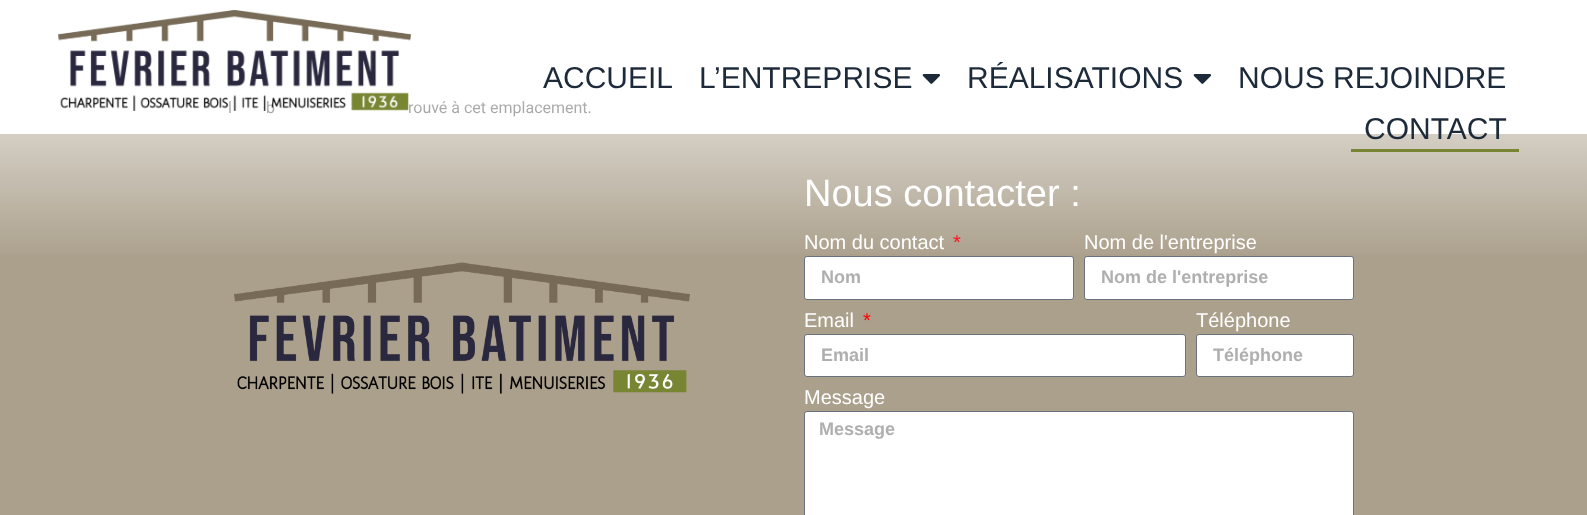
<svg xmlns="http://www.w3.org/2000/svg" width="1587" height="515">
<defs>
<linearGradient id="g1" gradientUnits="userSpaceOnUse" x1="794" y1="0" x2="794" y2="260"><stop offset="0" stop-color="#fff"/><stop offset="1" stop-color="#fff" stop-opacity="0"/></linearGradient>
<clipPath id="clip1"><rect x="1213" y="345" width="124" height="21"/></clipPath>
</defs>
<rect width="100%" height="100%" fill="#fff"/>
<text x="228" y="113" style="font-family:Roboto;font-size:16px;fill:#333">l</text>
<text x="266" y="113" style="font-family:Roboto;font-size:16px;fill:#333">b</text>
<text x="408" y="113" style="font-family:Roboto;font-size:16px;fill:#333">rouvé à cet emplacement.</text>
<rect y="134" width="1587" height="381" fill="#aba08c"/>
<text x="804" y="206" style="font-family:Liberation Sans;font-size:38px;fill:#fff">Nous contacter :</text>
<text x="804" y="249" style="font-family:Liberation Sans;font-size:20px;fill:#fff">Nom du contact</text>
<text x="953" y="249" style="font-family:Liberation Sans;font-size:20px;fill:#f00">*</text>
<text x="1084" y="249" style="font-family:Liberation Sans;font-size:20px;fill:#fff">Nom de l'entreprise</text>
<rect y="101" width="1587" height="153" fill="url(#g1)"/>
<image x="58" y="10" width="353" height="101" href="media/1.png"/>
<text x="543" y="88" style="font-family:Liberation Sans;font-size:30px;fill:#1d2a3a">ACCUEIL</text>
<text x="699" y="88" style="font-family:Liberation Sans;font-size:30px;fill:#1d2a3a">L’ENTREPRISE</text>
<image x="922" y="74" width="19" height="10" href="media/2.png"/>
<text x="967" y="88" style="font-family:Liberation Sans;font-size:30px;fill:#1d2a3a">RÉALISATIONS</text>
<image x="1193" y="74" width="19" height="10" href="media/2.png"/>
<text x="1238" y="88" style="font-family:Liberation Sans;font-size:30px;fill:#1d2a3a">NOUS REJOINDRE</text>
<text x="1364" y="139" style="font-family:Liberation Sans;font-size:30px;fill:#1d2a3a">CONTACT</text>
<rect x="1351" y="149" width="168" height="3" fill="#788533"/>
<image x="234" y="262" width="456" height="132" href="media/3.png"/>
<rect x="804.5" y="256.5" width="269" height="43" rx="2.5" fill="#fff" stroke="#69727d"/>
<text x="821" y="283" style="font-family:Liberation Sans;font-size:18px;font-weight:bold;fill:#afafaf">Nom</text>
<rect x="1084.5" y="256.5" width="269" height="43" rx="2.5" fill="#fff" stroke="#69727d"/>
<text x="1101" y="283" style="font-family:Liberation Sans;font-size:18px;font-weight:bold;fill:#afafaf">Nom de l'entreprise</text>
<text x="804" y="327" style="font-family:Liberation Sans;font-size:20px;fill:#fff">Email</text>
<text x="863" y="327" style="font-family:Liberation Sans;font-size:20px;fill:#f00">*</text>
<rect x="804.5" y="334.5" width="381" height="42" rx="2.5" fill="#fff" stroke="#69727d"/>
<text x="821" y="361" style="font-family:Liberation Sans;font-size:18px;font-weight:bold;fill:#afafaf">Email</text>
<text x="1196" y="327" style="font-family:Liberation Sans;font-size:20px;fill:#fff">Téléphone</text>
<rect x="1196.5" y="334.5" width="157" height="42" rx="2.5" fill="#fff" stroke="#69727d"/>
<g clip-path="url(#clip1)">
<text x="1213" y="361" style="font-family:Liberation Sans;font-size:18px;font-weight:bold;fill:#afafaf">Téléphone</text>
</g>
<text x="804" y="404" style="font-family:Liberation Sans;font-size:20px;fill:#fff">Message</text>
<rect x="804.5" y="411.5" width="549" height="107" rx="2.5" fill="#fff" stroke="#69727d"/>
<text x="819" y="435" style="font-family:Liberation Sans;font-size:18px;font-weight:bold;fill:#afafaf">Message</text>
</svg>
